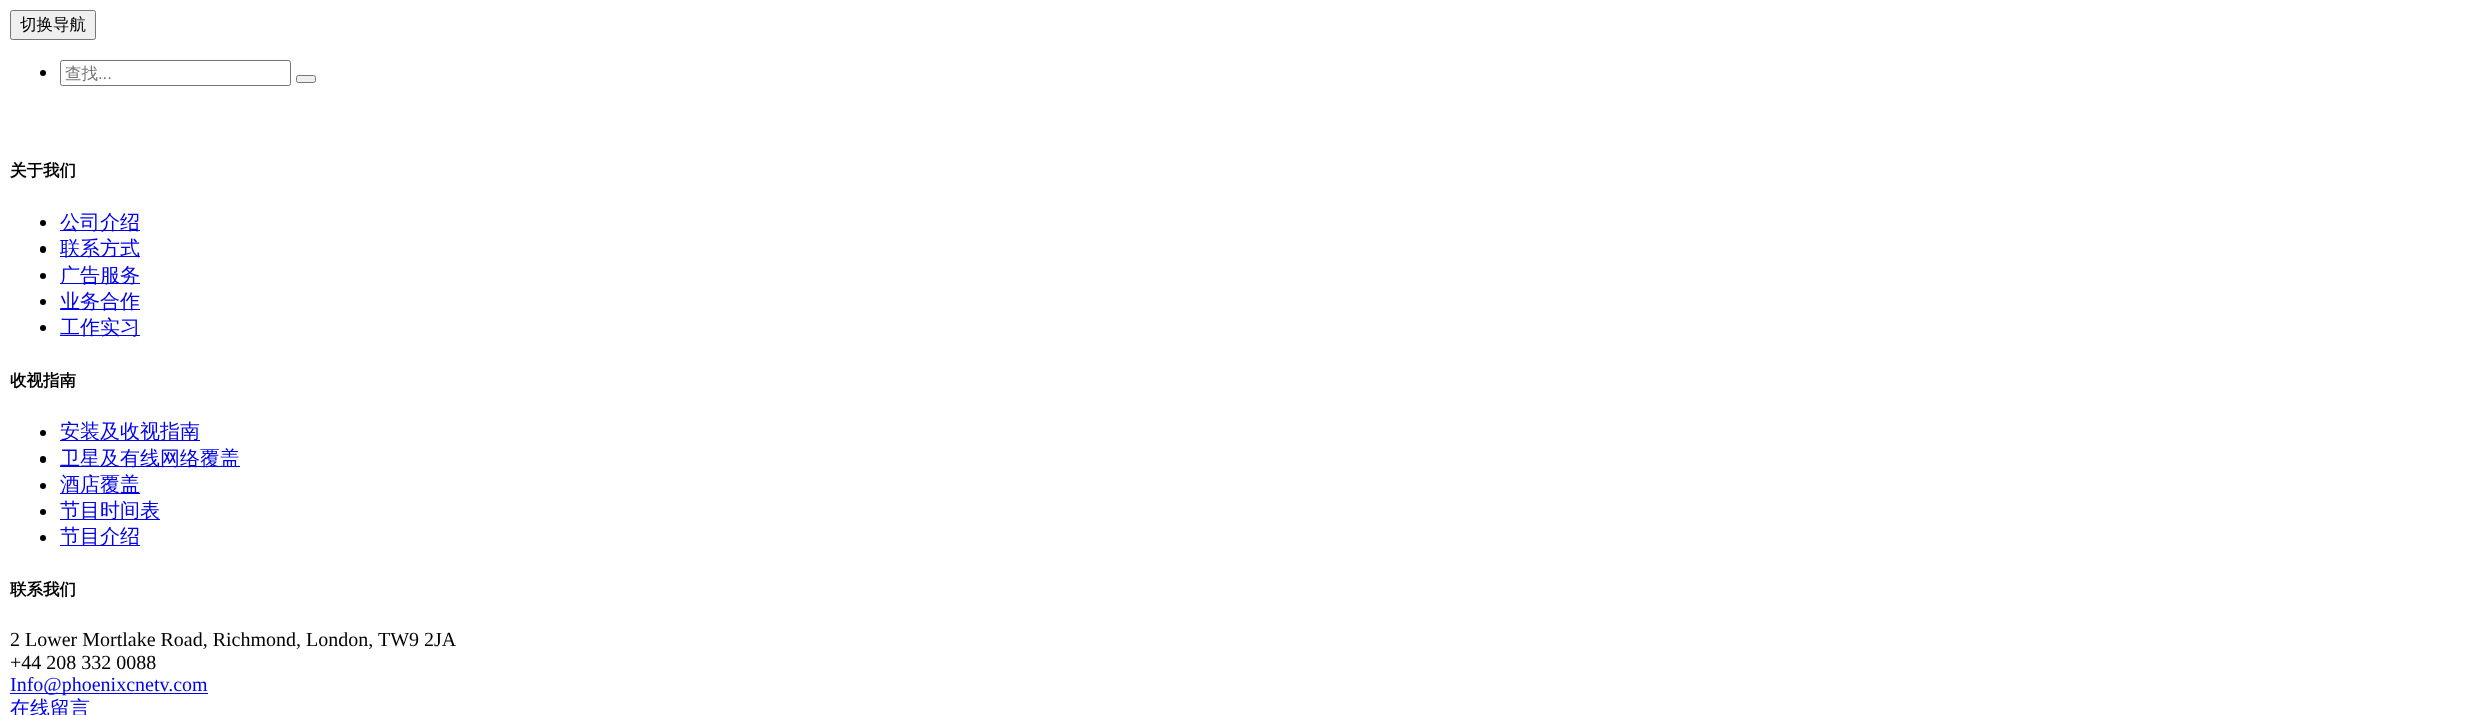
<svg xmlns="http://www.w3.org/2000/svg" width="2483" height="715">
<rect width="100%" height="100%" fill="#fff"/>
<rect x="10.5" y="10.5" width="85" height="29" rx="2" fill="#efefef" stroke="#767676"/>
<text x="20" y="30" style="font-family:WenQuanYi Zen Hei;font-size:16.5px;font-weight:500;fill:#000">切换导航</text>
<circle cx="43" cy="73" r="3" fill="#000"/>
<rect x="60.5" y="60.5" width="230" height="25" rx="2" fill="none" stroke="#767676"/>
<text x="65" y="79" style="font-family:WenQuanYi Zen Hei;font-size:16.5px;font-weight:500;fill:#757575">查找</text>
<text x="98" y="79" style="font-family:Liberation Sans;font-size:16.5px;fill:#757575">...</text>
<rect x="296.5" y="75.5" width="19" height="7" rx="2" fill="#efefef" stroke="#767676"/>
<text x="10" y="176" style="font-family:WenQuanYi Zen Hei;font-size:16.5px;font-weight:bold;fill:#000">关于我们</text>
<circle cx="43" cy="223" r="3" fill="#000"/>
<rect x="60" y="230" width="80" height="1" fill="#00e"/>
<text x="60" y="229" style="font-family:WenQuanYi Zen Hei;font-size:20px;font-weight:500;fill:#00e">公司介绍</text>
<rect x="40" y="246" width="6" height="7" rx="3" fill="#000"/>
<rect x="60" y="256" width="80" height="1" fill="#00e"/>
<text x="60" y="255" style="font-family:WenQuanYi Zen Hei;font-size:20px;font-weight:500;fill:#00e">联系方式</text>
<circle cx="43" cy="276" r="3" fill="#000"/>
<rect x="60" y="283" width="80" height="1" fill="#00e"/>
<text x="60" y="282" style="font-family:WenQuanYi Zen Hei;font-size:20px;font-weight:500;fill:#00e">广告服务</text>
<circle cx="43" cy="302" r="3" fill="#000"/>
<rect x="60" y="309" width="80" height="1" fill="#00e"/>
<text x="60" y="308" style="font-family:WenQuanYi Zen Hei;font-size:20px;font-weight:500;fill:#00e">业务合作</text>
<circle cx="43" cy="328" r="3" fill="#000"/>
<rect x="60" y="335" width="80" height="1" fill="#00e"/>
<text x="60" y="334" style="font-family:WenQuanYi Zen Hei;font-size:20px;font-weight:500;fill:#00e">工作实习</text>
<text x="10" y="386" style="font-family:WenQuanYi Zen Hei;font-size:16.5px;font-weight:bold;fill:#000">收视指南</text>
<circle cx="43" cy="433" r="3" fill="#000"/>
<rect x="60" y="440" width="140" height="1" fill="#00e"/>
<text x="60" y="438" style="font-family:WenQuanYi Zen Hei;font-size:20px;font-weight:500;fill:#00e">安装及收视指南</text>
<rect x="40" y="456" width="6" height="7" rx="3" fill="#000"/>
<rect x="60" y="466" width="180" height="1" fill="#00e"/>
<text x="60" y="465" style="font-family:WenQuanYi Zen Hei;font-size:20px;font-weight:500;fill:#00e">卫星及有线网络覆盖</text>
<circle cx="43" cy="486" r="3" fill="#000"/>
<rect x="60" y="493" width="80" height="1" fill="#00e"/>
<text x="60" y="491" style="font-family:WenQuanYi Zen Hei;font-size:20px;font-weight:500;fill:#00e">酒店覆盖</text>
<circle cx="43" cy="512" r="3" fill="#000"/>
<rect x="60" y="519" width="100" height="1" fill="#00e"/>
<text x="60" y="517" style="font-family:WenQuanYi Zen Hei;font-size:20px;font-weight:500;fill:#00e">节目时间表</text>
<circle cx="43" cy="538" r="3" fill="#000"/>
<rect x="60" y="545" width="80" height="1" fill="#00e"/>
<text x="60" y="543" style="font-family:WenQuanYi Zen Hei;font-size:20px;font-weight:500;fill:#00e">节目介绍</text>
<text x="10" y="595" style="font-family:WenQuanYi Zen Hei;font-size:16.5px;font-weight:bold;fill:#000">联系我们</text>
<text x="10" y="646" style="font-family:Liberation Serif;font-size:20px;fill:#000">2 Lower Mortlake Road, Richmond, London, TW9 2JA</text>
<text x="10" y="669" style="font-family:Liberation Serif;font-size:20px;fill:#000">+44 208 332 0088</text>
<rect x="10" y="693" width="198" height="1" fill="#00e"/>
<text x="10" y="691" style="font-family:Liberation Serif;font-size:20px;fill:#00e">Info@phoenixcnetv.com</text>
<text x="10" y="715" style="font-family:WenQuanYi Zen Hei;font-size:20px;font-weight:500;fill:#00e">在线留言</text>
</svg>
